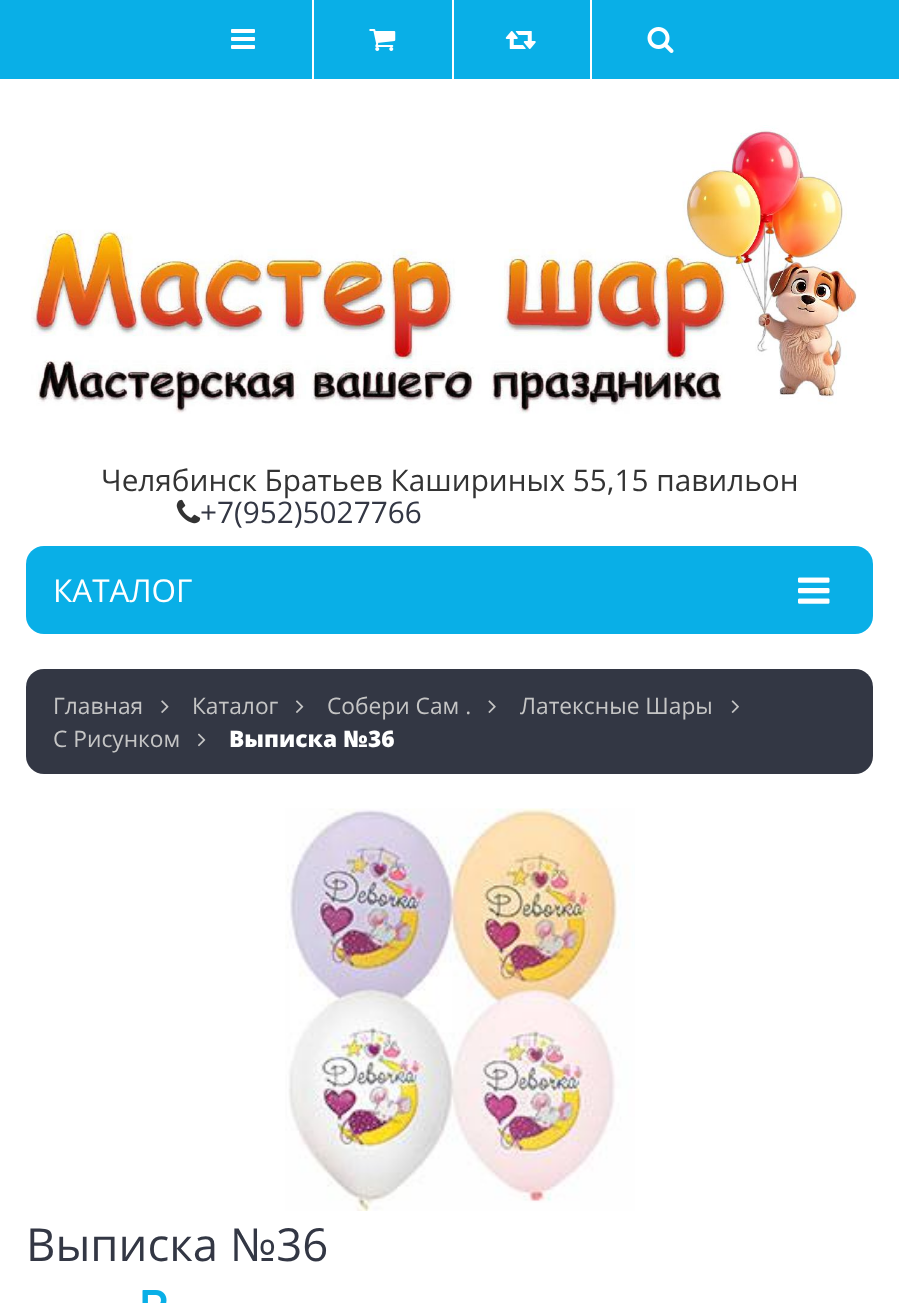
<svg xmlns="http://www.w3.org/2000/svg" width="899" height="1303">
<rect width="100%" height="100%" fill="#fff"/>
<rect width="899" height="79" fill="#09afe7"/>
<rect x="312" width="2" height="79" fill="#fff"/>
<image x="231" y="29" width="24" height="20" href="media/1.png"/>
<rect x="452" width="2" height="79" fill="#fff"/>
<image x="369" y="29" width="27" height="22" href="media/2.png"/>
<rect x="590" width="2" height="79" fill="#fff"/>
<image x="505" y="31" width="31" height="18" href="media/3.png"/>
<image x="647" y="27" width="27" height="26" href="media/4.png"/>
<image x="31" y="125" width="826" height="289" href="media/5.png"/>
<text x="101" y="491" style="font-family:Open Sans;font-size:29.75px;fill:#333">Челябинск Братьев Кашириных 55,15 павильон</text>
<image x="176" y="499" width="25" height="25" href="media/6.png"/>
<text x="200" y="523" style="font-family:Open Sans;font-size:29.75px;fill:#333744">+7(952)5027766</text>
<rect x="26" y="546" width="847" height="88" rx="18" fill="#09afe7"/>
<text x="53" y="602" style="font-family:Open Sans;font-size:31.5px;fill:#fff">КАТАЛОГ</text>
<image x="798" y="577" width="32" height="27" href="media/7.png"/>
<rect x="26" y="669" width="847" height="105" rx="18" fill="#333744"/>
<text x="53" y="714" style="font-family:Open Sans;font-size:22.75px;fill:#c5c5c5">Главная</text>
<image x="161" y="700" width="8" height="13" href="media/8.png"/>
<text x="192" y="714" style="font-family:Open Sans;font-size:22.75px;fill:#c5c5c5">Каталог</text>
<image x="296" y="700" width="8" height="13" href="media/9.png"/>
<text x="327" y="714" style="font-family:Open Sans;font-size:22.75px;fill:#c5c5c5">Собери Сам .</text>
<image x="488" y="700" width="8" height="13" href="media/10.png"/>
<text x="520" y="714" style="font-family:Open Sans;font-size:22.75px;fill:#c5c5c5">Латексные Шары</text>
<image x="731" y="700" width="8" height="13" href="media/11.png"/>
<text x="53" y="747" style="font-family:Open Sans;font-size:22.75px;fill:#c5c5c5">С Рисунком</text>
<image x="198" y="733" width="8" height="14" href="media/12.png"/>
<text x="229" y="747" style="font-family:Open Sans;font-size:22.75px;font-weight:800;fill:#fff">Выписка №36</text>
<image x="285" y="808" width="350" height="403" href="media/13.png"/>
<text x="26" y="1261" style="font-family:Open Sans;font-size:45.5px;fill:#333744">Выписка №36</text>
<image x="142" y="1290" width="25" height="13" href="media/14.png"/>
</svg>
